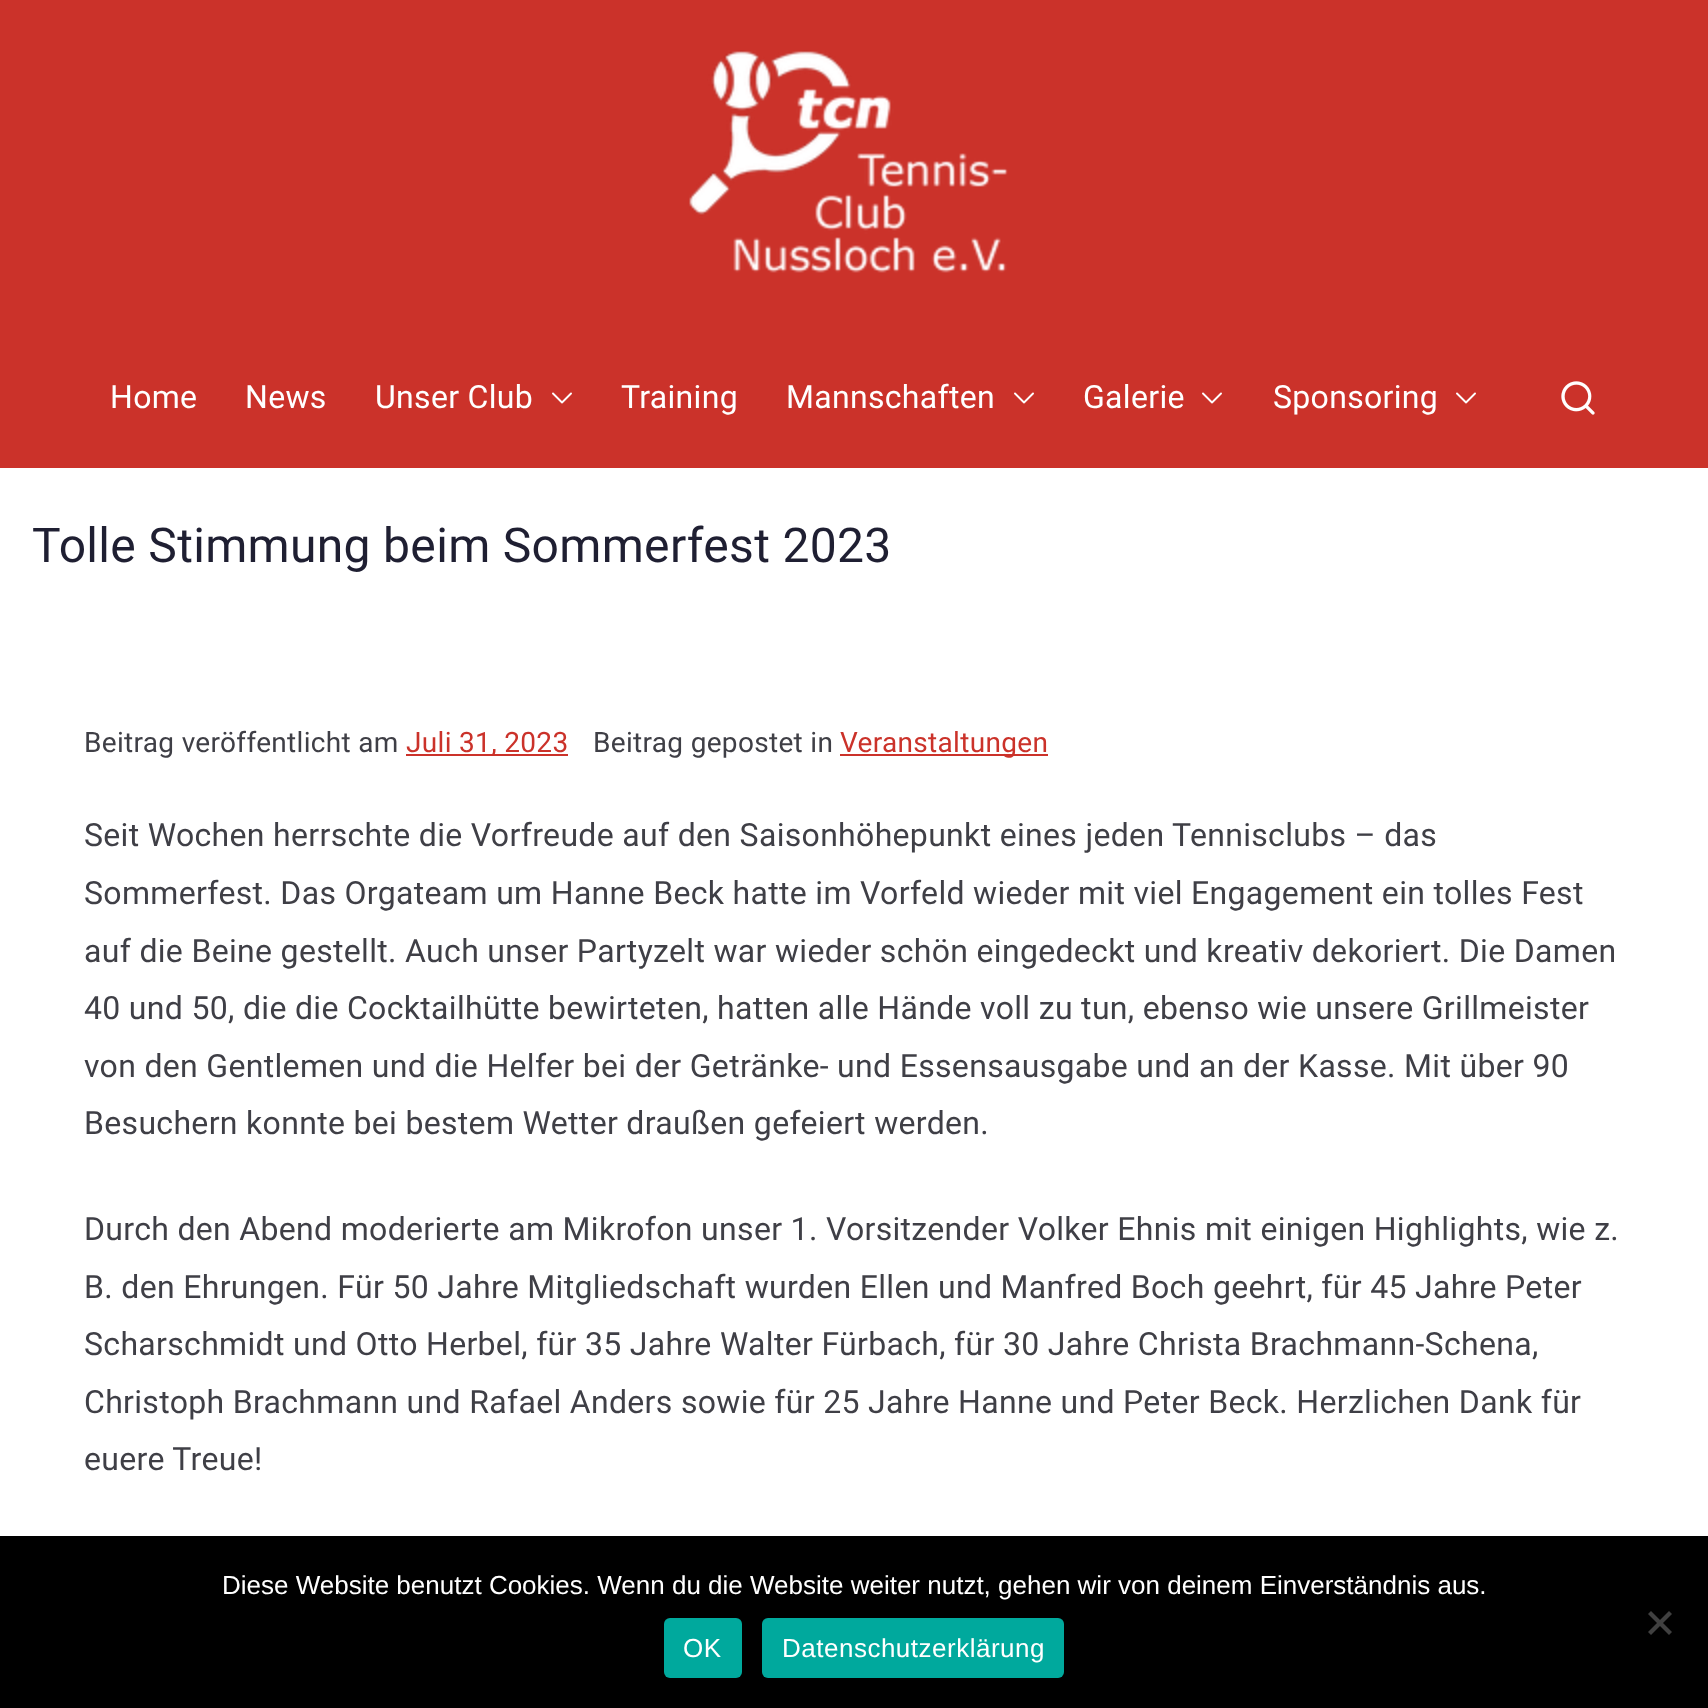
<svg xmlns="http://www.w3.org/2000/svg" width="1708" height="1708">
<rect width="100%" height="100%" fill="#cb322a"/>
<image x="689" y="50" width="319" height="223" href="media/1.png"/>
<text x="110" y="408" style="font-family:Roboto;font-size:32px;letter-spacing:0.32px;fill:#fff">Home</text>
<text x="245" y="408" style="font-family:Roboto;font-size:32px;letter-spacing:0.32px;fill:#fff">News</text>
<text x="375" y="408" style="font-family:Roboto;font-size:32px;letter-spacing:0.32px;fill:#fff">Unser Club</text>
<image x="552" y="392" width="20" height="12" href="media/2.png"/>
<text x="621" y="408" style="font-family:Roboto;font-size:32px;letter-spacing:0.32px;fill:#fff">Training</text>
<text x="786" y="408" style="font-family:Roboto;font-size:32px;letter-spacing:0.32px;fill:#fff">Mannschaften</text>
<image x="1014" y="392" width="20" height="12" href="media/2.png"/>
<text x="1083" y="408" style="font-family:Roboto;font-size:32px;letter-spacing:0.32px;fill:#fff">Galerie</text>
<image x="1202" y="392" width="20" height="12" href="media/2.png"/>
<text x="1273" y="408" style="font-family:Roboto;font-size:32px;letter-spacing:0.32px;fill:#fff">Sponsoring</text>
<image x="1456" y="392" width="20" height="12" href="media/2.png"/>
<image x="1561" y="381" width="34" height="34" href="media/3.png"/>
<rect y="468" width="1708" height="1068" fill="#fff"/>
<text x="32" y="562" style="font-family:Roboto;font-size:48px;letter-spacing:0.32px;fill:#1f1f32">Tolle Stimmung beim Sommerfest 2023</text>
<text x="84" y="752" style="font-family:Roboto;font-size:28px;letter-spacing:0.32px;fill:#3f3f46">Beitrag veröffentlicht am</text>
<rect x="406" y="754" width="162" height="2" fill="#cb322a"/>
<text x="406" y="752" style="font-family:Roboto;font-size:28px;letter-spacing:0.32px;fill:#cb322a">Juli 31, 2023</text>
<text x="593" y="752" style="font-family:Roboto;font-size:28px;letter-spacing:0.32px;fill:#3f3f46">Beitrag gepostet in</text>
<rect x="840" y="754" width="208" height="2" fill="#cb322a"/>
<text x="840" y="752" style="font-family:Roboto;font-size:28px;letter-spacing:0.32px;fill:#cb322a">Veranstaltungen</text>
<text x="84" y="846" style="font-family:Roboto;font-size:32px;letter-spacing:0.32px;fill:#3f3f46">Seit Wochen herrschte die Vorfreude auf den Saisonhöhepunkt eines jeden Tennisclubs – das</text>
<text x="84" y="904" style="font-family:Roboto;font-size:32px;letter-spacing:0.32px;fill:#3f3f46">Sommerfest. Das Orgateam um Hanne Beck hatte im Vorfeld wieder mit viel Engagement ein tolles Fest</text>
<text x="84" y="962" style="font-family:Roboto;font-size:32px;letter-spacing:0.32px;fill:#3f3f46">auf die Beine gestellt. Auch unser Partyzelt war wieder schön eingedeckt und kreativ dekoriert. Die Damen</text>
<text x="84" y="1019" style="font-family:Roboto;font-size:32px;letter-spacing:0.32px;fill:#3f3f46">40 und 50, die die Cocktailhütte bewirteten, hatten alle Hände voll zu tun, ebenso wie unsere Grillmeister</text>
<text x="84" y="1077" style="font-family:Roboto;font-size:32px;letter-spacing:0.32px;fill:#3f3f46">von den Gentlemen und die Helfer bei der Getränke- und Essensausgabe und an der Kasse. Mit über 90</text>
<text x="84" y="1134" style="font-family:Roboto;font-size:32px;letter-spacing:0.32px;fill:#3f3f46">Besuchern konnte bei bestem Wetter draußen gefeiert werden.</text>
<text x="84" y="1240" style="font-family:Roboto;font-size:32px;letter-spacing:0.32px;fill:#3f3f46">Durch den Abend moderierte am Mikrofon unser 1. Vorsitzender Volker Ehnis mit einigen Highlights, wie z.</text>
<text x="84" y="1298" style="font-family:Roboto;font-size:32px;letter-spacing:0.32px;fill:#3f3f46">B. den Ehrungen. Für 50 Jahre Mitgliedschaft wurden Ellen und Manfred Boch geehrt, für 45 Jahre Peter</text>
<text x="84" y="1355" style="font-family:Roboto;font-size:32px;letter-spacing:0.32px;fill:#3f3f46">Scharschmidt und Otto Herbel, für 35 Jahre Walter Fürbach, für 30 Jahre Christa Brachmann-Schena,</text>
<text x="84" y="1413" style="font-family:Roboto;font-size:32px;letter-spacing:0.32px;fill:#3f3f46">Christoph Brachmann und Rafael Anders sowie für 25 Jahre Hanne und Peter Beck. Herzlichen Dank für</text>
<text x="84" y="1470" style="font-family:Roboto;font-size:32px;letter-spacing:0.32px;fill:#3f3f46">euere Treue!</text>
<rect y="1536" width="1708" height="172" fill="#000"/>
<text x="222" y="1594" style="font-family:Liberation Sans;font-size:26px;fill:#fff">Diese Website benutzt Cookies. Wenn du die Website weiter nutzt, gehen wir von deinem Einverständnis aus.</text>
<path d="M1669 1611l3 3l-21 21l-3-3z" fill="#404040"/>
<path d="M1648 1614l3-3l21 21l-3 3z" fill="#404040"/>
<rect x="664" y="1618" width="78" height="60" rx="6" fill="#00a99d"/>
<text x="683" y="1657" style="font-family:Liberation Sans;font-size:26px;letter-spacing:0.5px;fill:#fff">OK</text>
<rect x="762" y="1618" width="302" height="60" rx="6" fill="#00a99d"/>
<text x="782" y="1657" style="font-family:Liberation Sans;font-size:26px;letter-spacing:0.5px;fill:#fff">Datenschutzerklärung</text>
</svg>
